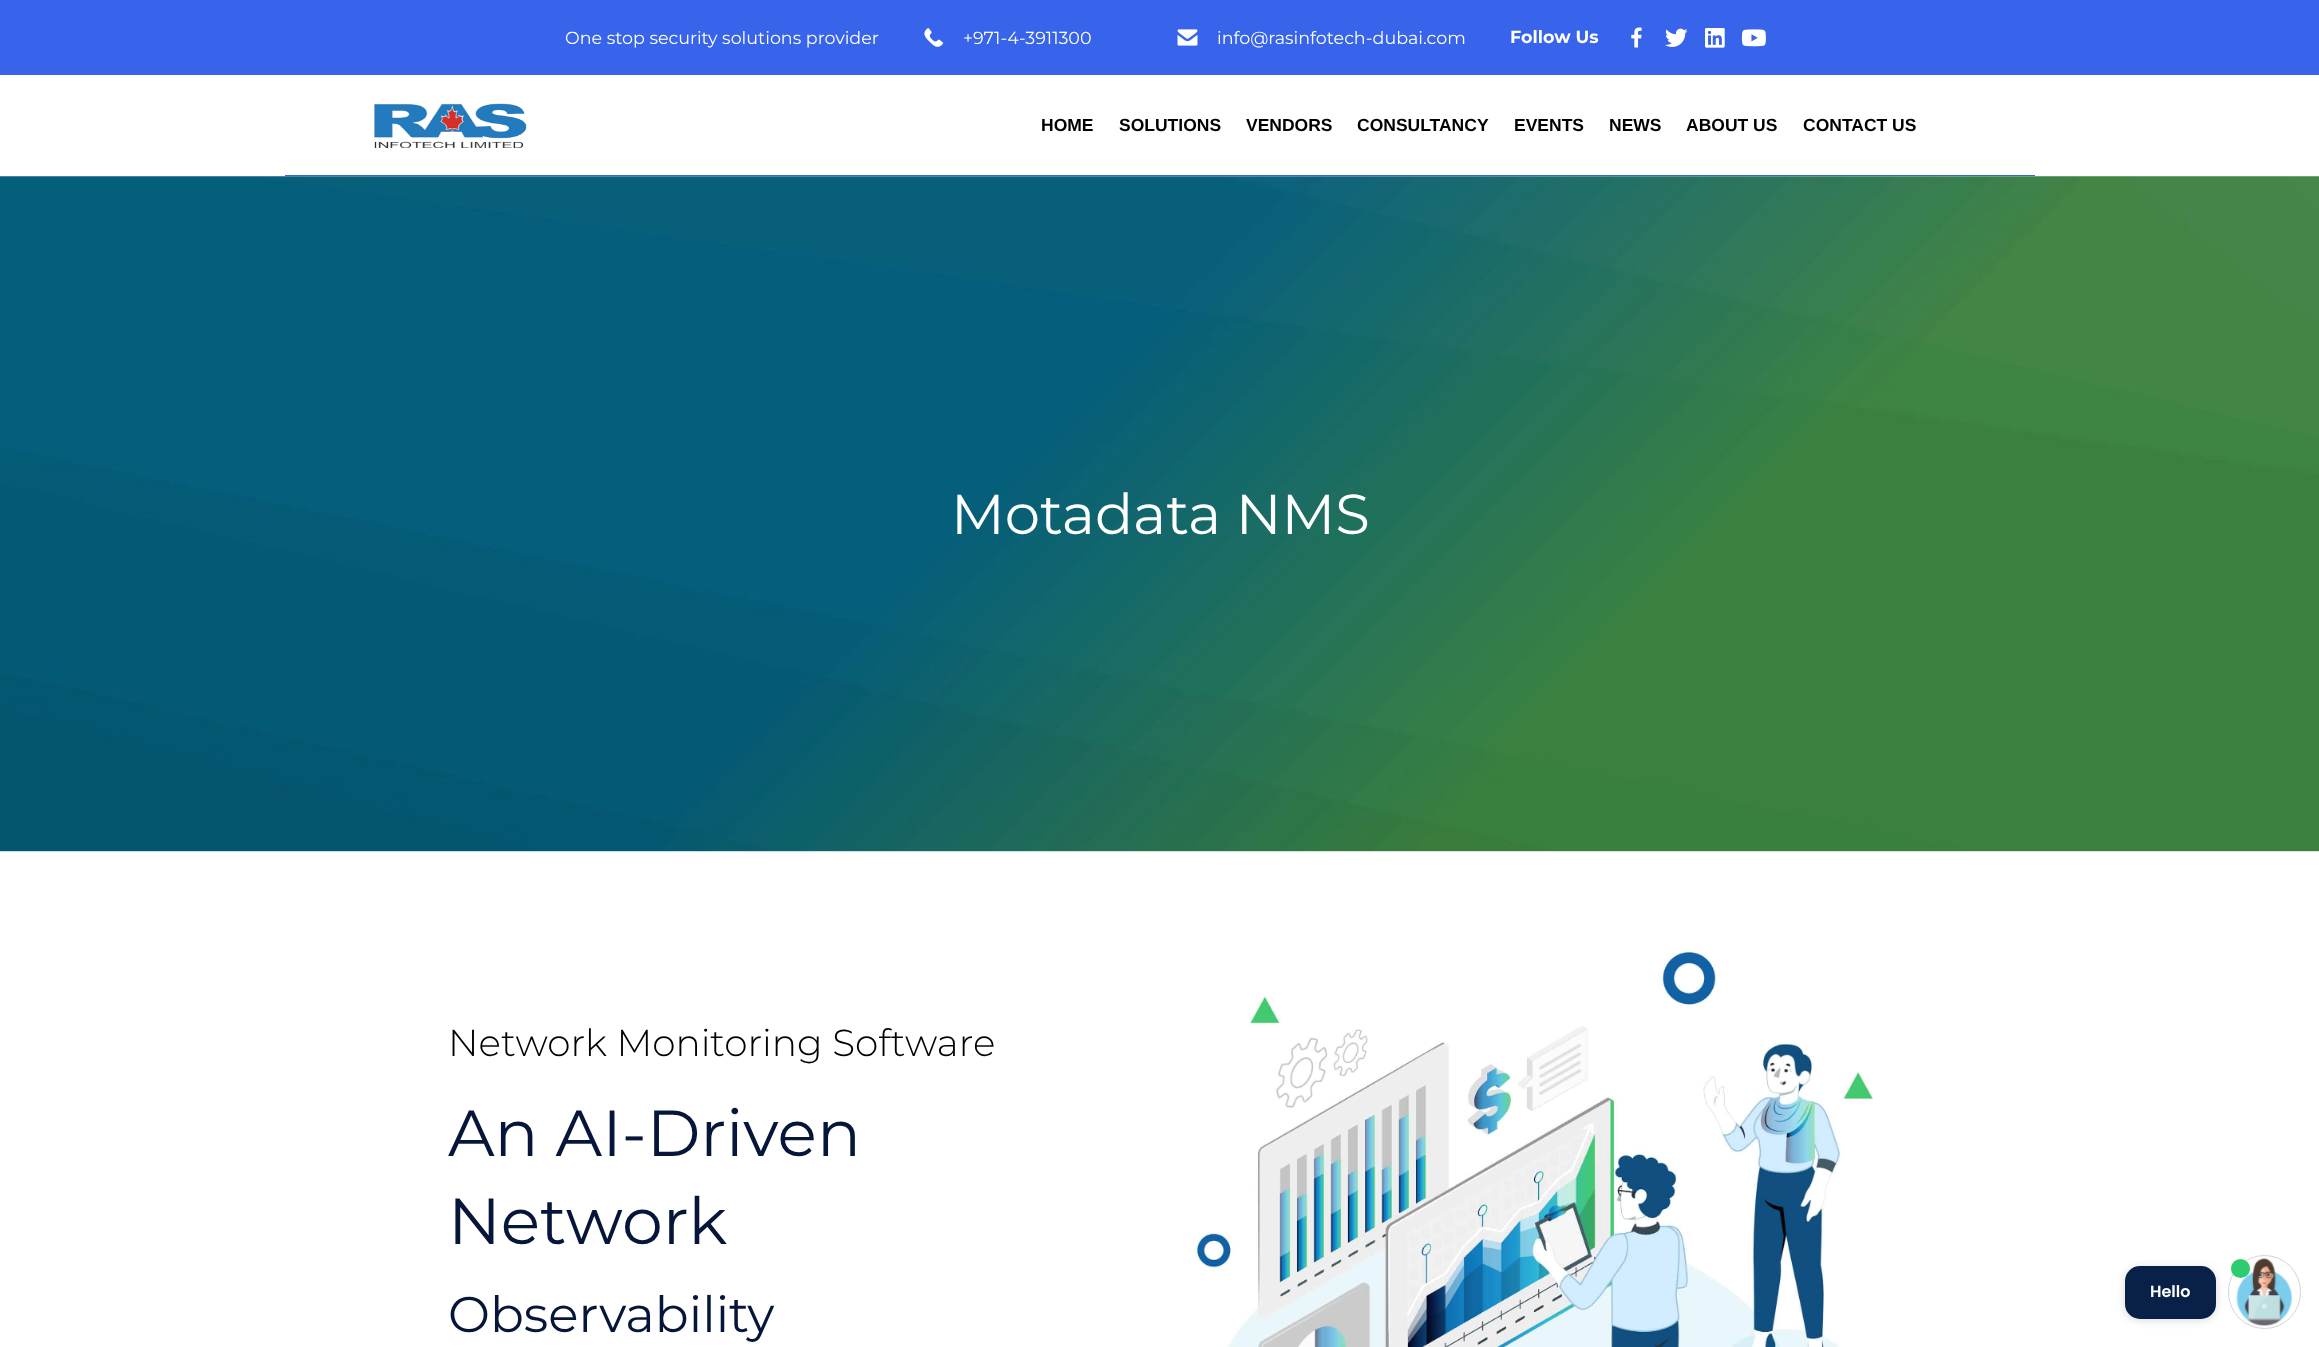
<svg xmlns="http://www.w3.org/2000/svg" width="2319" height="1347">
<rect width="100%" height="100%" fill="#fff"/>
<rect width="2319" height="75" fill="#3764eb"/>
<text x="565" y="44" style="font-family:Montserrat;font-size:17.5px;fill:#fff">One stop security solutions provider</text>
<image x="924" y="28" width="20" height="19" href="media/1.png"/>
<text x="963" y="44" style="font-family:Montserrat;font-size:17.5px;fill:#fff">+971-4-3911300</text>
<image x="1177" y="29" width="21" height="17" href="media/2.png"/>
<text x="1217" y="44" style="font-family:Montserrat;font-size:17.5px;fill:#fff">info@rasinfotech-dubai.com</text>
<text x="1510" y="43" style="font-family:Montserrat;font-size:17.5px;font-weight:bold;fill:#fff">Follow Us</text>
<image x="1631" y="27" width="11" height="21" href="media/3.png"/>
<image x="1665" y="28" width="23" height="19" href="media/4.png"/>
<image x="1705" y="28" width="20" height="20" href="media/5.png"/>
<image x="1741" y="29" width="25" height="18" href="media/6.png"/>
<rect x="285" y="175" width="1750" height="1" fill="#3764eb"/>
<image x="374" y="103" width="153" height="45" href="media/7.png"/>
<text x="1041" y="131" style="font-family:Liberation Sans;font-size:17.5px;font-weight:bold;fill:#000">HOME</text>
<text x="1119" y="131" style="font-family:Liberation Sans;font-size:17.5px;font-weight:bold;fill:#000">SOLUTIONS</text>
<text x="1246" y="131" style="font-family:Liberation Sans;font-size:17.5px;font-weight:bold;fill:#000">VENDORS</text>
<text x="1357" y="131" style="font-family:Liberation Sans;font-size:17.5px;font-weight:bold;fill:#000">CONSULTANCY</text>
<text x="1514" y="131" style="font-family:Liberation Sans;font-size:17.5px;font-weight:bold;fill:#000">EVENTS</text>
<text x="1609" y="131" style="font-family:Liberation Sans;font-size:17.5px;font-weight:bold;fill:#000">NEWS</text>
<text x="1686" y="131" style="font-family:Liberation Sans;font-size:17.5px;font-weight:bold;fill:#000">ABOUT US</text>
<text x="1803" y="131" style="font-family:Liberation Sans;font-size:17.5px;font-weight:bold;fill:#000">CONTACT US</text>
<image x="0" y="176" width="2319" height="676" href="media/8.png"/>
<text x="951" y="534" style="font-family:Montserrat;font-size:56.25px;fill:#fff">Motadata NMS</text>
<text x="448" y="1056" style="font-family:Montserrat;font-size:37.5px;font-weight:300;fill:#000">Network Monitoring Software</text>
<text x="448" y="1156" style="font-family:Montserrat;font-size:65px;fill:#06163a">An AI-Driven</text>
<text x="448" y="1244" style="font-family:Montserrat;font-size:65px;fill:#06163a">Network</text>
<text x="448" y="1332" style="font-family:Montserrat;font-size:50px;fill:#06163a">Observability</text>
<image x="1192" y="951" width="681" height="396" href="media/9.png"/>
<rect x="2125" y="1268" width="91" height="52" rx="15" fill="#00000026" filter="blur(5px)"/>
<rect x="2125" y="1266" width="91" height="53" rx="15" fill="#092148"/>
<text x="2150" y="1297" style="font-family:Poppins;font-size:16px;font-weight:600;fill:#fff">Hello</text>
<rect x="2228.5" y="1255.5" width="72" height="73" rx="36" fill="none" stroke="#d3d3d3"/>
<image x="2236" y="1258" width="57" height="69" href="media/10.png"/>
<circle cx="2240.5" cy="1268.5" r="9.5" fill="#2ecc71"/>
</svg>
